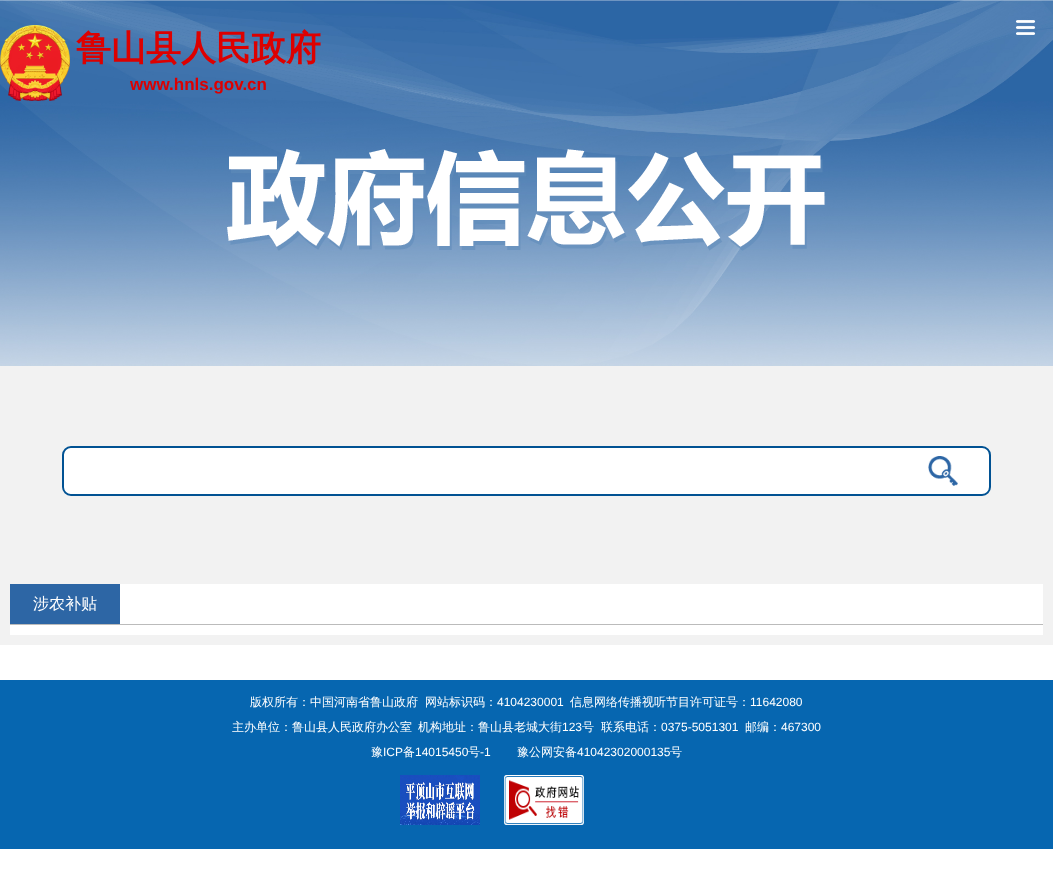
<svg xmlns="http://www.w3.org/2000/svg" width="1053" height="880">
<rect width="100%" height="100%" fill="#fff"/>
<image x="0" y="0" width="1053" height="366" href="media/1.png"/>
<image x="1015" y="20" width="21" height="15" href="media/2.png"/>
<image x="0" y="25" width="70" height="76" href="media/3.png"/>
<text x="76" y="60" style="font-family:WenQuanYi Zen Hei;font-size:35px;font-weight:bold;fill:#d00">鲁山县人民政府</text>
<text x="130" y="90" style="font-family:Liberation Sans;font-size:17px;font-weight:bold;fill:#d00">www.hnls.gov.cn</text>
<image x="227" y="149" width="599" height="102" href="media/4.png"/>
<rect y="366" width="1053" height="279" fill="#f2f2f2"/>
<rect x="63" y="447" width="927" height="48" rx="8" fill="#fff" stroke="#015293" stroke-width="2"/>
<rect x="64" y="448" width="833" height="46" rx="9" fill="#fff"/>
<image x="928" y="456" width="30" height="30" href="media/5.png"/>
<rect x="10" y="584" width="1033" height="51" fill="#fff"/>
<rect x="10" y="624" width="1033" height="1" fill="#bbb"/>
<rect x="10" y="584" width="110" height="40" fill="#2d66a5"/>
<text x="33" y="609" style="font-family:WenQuanYi Zen Hei;font-size:16px;font-weight:500;fill:#fff">涉农补贴</text>
<rect y="680" width="1053" height="169" fill="#0666b0"/>
<text x="250" y="706" style="font-family:WenQuanYi Zen Hei;font-size:12px;font-weight:500;fill:#fff">版权所有：中国河南省鲁山政府</text>
<text x="425" y="706" style="font-family:WenQuanYi Zen Hei;font-size:12px;font-weight:500;fill:#fff">网站标识码：</text>
<text x="497" y="706" style="font-family:Liberation Sans;font-size:12px;fill:#fff">4104230001</text>
<text x="570" y="706" style="font-family:WenQuanYi Zen Hei;font-size:12px;font-weight:500;fill:#fff">信息网络传播视听节目许可证号：</text>
<text x="750" y="706" style="font-family:Liberation Sans;font-size:12px;fill:#fff">11642080</text>
<text x="232" y="731" style="font-family:WenQuanYi Zen Hei;font-size:12px;font-weight:500;fill:#fff">主办单位：鲁山县人民政府办公室</text>
<text x="418" y="731" style="font-family:WenQuanYi Zen Hei;font-size:12px;font-weight:500;fill:#fff">机构地址：鲁山县老城大街</text>
<text x="562" y="731" style="font-family:Liberation Sans;font-size:12px;fill:#fff">123</text>
<text x="582" y="731" style="font-family:WenQuanYi Zen Hei;font-size:12px;font-weight:500;fill:#fff">号</text>
<text x="601" y="731" style="font-family:WenQuanYi Zen Hei;font-size:12px;font-weight:500;fill:#fff">联系电话：</text>
<text x="661" y="731" style="font-family:Liberation Sans;font-size:12px;fill:#fff">0375-5051301</text>
<text x="745" y="731" style="font-family:WenQuanYi Zen Hei;font-size:12px;font-weight:500;fill:#fff">邮编：</text>
<text x="781" y="731" style="font-family:Liberation Sans;font-size:12px;fill:#fff">467300</text>
<text x="371" y="756" style="font-family:WenQuanYi Zen Hei;font-size:12px;font-weight:500;fill:#fff">豫</text>
<text x="383" y="756" style="font-family:Liberation Sans;font-size:12px;fill:#fff">ICP</text>
<text x="403" y="756" style="font-family:WenQuanYi Zen Hei;font-size:12px;font-weight:500;fill:#fff">备</text>
<text x="415" y="756" style="font-family:Liberation Sans;font-size:12px;fill:#fff">14015450</text>
<text x="468" y="756" style="font-family:WenQuanYi Zen Hei;font-size:12px;font-weight:500;fill:#fff">号</text>
<text x="480" y="756" style="font-family:Liberation Sans;font-size:12px;fill:#fff">-1</text>
<text x="517" y="756" style="font-family:WenQuanYi Zen Hei;font-size:12px;font-weight:500;fill:#fff">豫公网安备</text>
<text x="577" y="756" style="font-family:Liberation Sans;font-size:12px;fill:#fff">41042302000135</text>
<text x="670" y="756" style="font-family:WenQuanYi Zen Hei;font-size:12px;font-weight:500;fill:#fff">号</text>
<image x="400" y="775" width="80" height="50" href="media/6.png"/>
<image x="504" y="775" width="80" height="50" href="media/7.png"/>
</svg>
